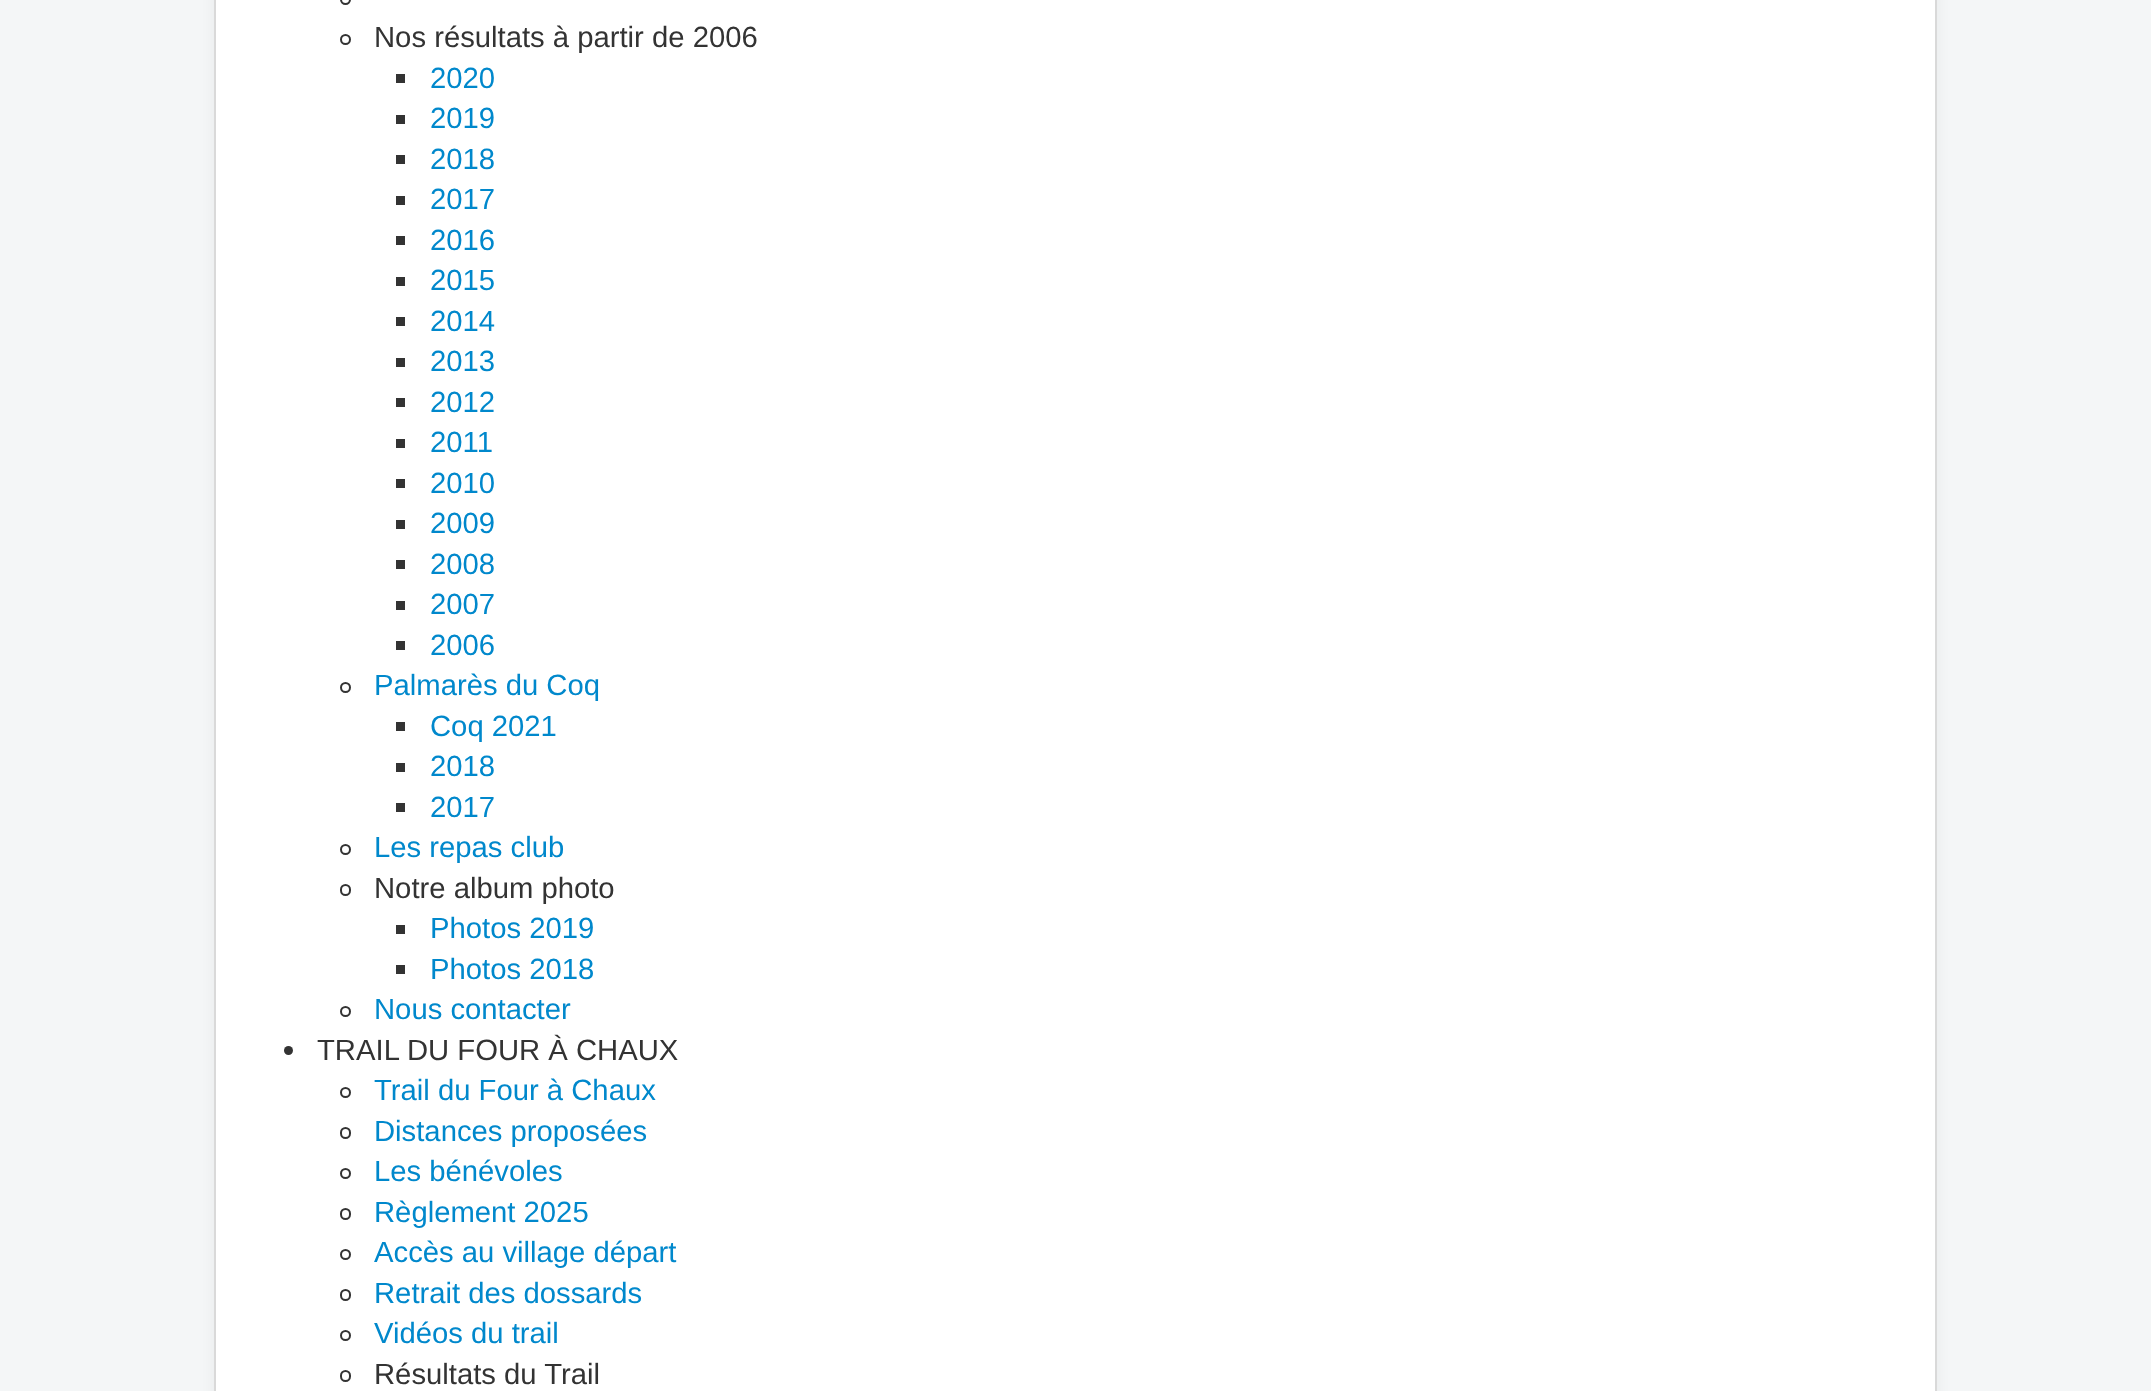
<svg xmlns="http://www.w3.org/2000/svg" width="2151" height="1391">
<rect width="100%" height="100%" fill="#f4f6f7"/>
<rect x="214" y="-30" width="1723" height="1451" rx="9" fill="#0000000d" filter="blur(7px)"/>
<rect x="215" y="-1" width="1721" height="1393" fill="#fff" stroke="#d9d9d9" stroke-width="2"/>
<rect x="341" y="-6" width="9" height="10" rx="4.5" fill="none" stroke="#333" stroke-width="2"/>
<circle cx="345.5" cy="39.5" r="4.5" fill="none" stroke="#333" stroke-width="2"/>
<text x="374" y="47" style="font-family:Liberation Sans;font-size:29.25px;fill:#333">Nos résultats à partir de 2006</text>
<rect x="396" y="74" width="9" height="9" fill="#333"/>
<text x="430" y="88" style="font-family:Liberation Sans;font-size:29.25px;fill:#08c">2020</text>
<rect x="396" y="115" width="9" height="9" fill="#333"/>
<text x="430" y="128" style="font-family:Liberation Sans;font-size:29.25px;fill:#08c">2019</text>
<rect x="396" y="155" width="9" height="9" fill="#333"/>
<text x="430" y="169" style="font-family:Liberation Sans;font-size:29.25px;fill:#08c">2018</text>
<rect x="396" y="196" width="9" height="9" fill="#333"/>
<text x="430" y="209" style="font-family:Liberation Sans;font-size:29.25px;fill:#08c">2017</text>
<rect x="396" y="236" width="9" height="9" fill="#333"/>
<text x="430" y="250" style="font-family:Liberation Sans;font-size:29.25px;fill:#08c">2016</text>
<rect x="396" y="277" width="9" height="9" fill="#333"/>
<text x="430" y="290" style="font-family:Liberation Sans;font-size:29.25px;fill:#08c">2015</text>
<rect x="396" y="317" width="9" height="9" fill="#333"/>
<text x="430" y="331" style="font-family:Liberation Sans;font-size:29.25px;fill:#08c">2014</text>
<rect x="396" y="358" width="9" height="9" fill="#333"/>
<text x="430" y="371" style="font-family:Liberation Sans;font-size:29.25px;fill:#08c">2013</text>
<rect x="396" y="398" width="9" height="9" fill="#333"/>
<text x="430" y="412" style="font-family:Liberation Sans;font-size:29.25px;fill:#08c">2012</text>
<rect x="396" y="439" width="9" height="9" fill="#333"/>
<text x="430" y="452" style="font-family:Liberation Sans;font-size:29.25px;fill:#08c">2011</text>
<rect x="396" y="479" width="9" height="9" fill="#333"/>
<text x="430" y="493" style="font-family:Liberation Sans;font-size:29.25px;fill:#08c">2010</text>
<rect x="396" y="520" width="9" height="9" fill="#333"/>
<text x="430" y="533" style="font-family:Liberation Sans;font-size:29.25px;fill:#08c">2009</text>
<rect x="396" y="560" width="9" height="9" fill="#333"/>
<text x="430" y="574" style="font-family:Liberation Sans;font-size:29.25px;fill:#08c">2008</text>
<rect x="396" y="601" width="9" height="9" fill="#333"/>
<text x="430" y="614" style="font-family:Liberation Sans;font-size:29.25px;fill:#08c">2007</text>
<rect x="396" y="641" width="9" height="9" fill="#333"/>
<text x="430" y="655" style="font-family:Liberation Sans;font-size:29.25px;fill:#08c">2006</text>
<circle cx="345.5" cy="687.5" r="4.5" fill="none" stroke="#333" stroke-width="2"/>
<text x="374" y="695" style="font-family:Liberation Sans;font-size:29.25px;fill:#08c">Palmarès du Coq</text>
<rect x="396" y="722" width="9" height="9" fill="#333"/>
<text x="430" y="736" style="font-family:Liberation Sans;font-size:29.25px;fill:#08c">Coq 2021</text>
<rect x="396" y="763" width="9" height="9" fill="#333"/>
<text x="430" y="776" style="font-family:Liberation Sans;font-size:29.25px;fill:#08c">2018</text>
<rect x="396" y="803" width="9" height="9" fill="#333"/>
<text x="430" y="817" style="font-family:Liberation Sans;font-size:29.25px;fill:#08c">2017</text>
<circle cx="345.5" cy="849.5" r="4.5" fill="none" stroke="#333" stroke-width="2"/>
<text x="374" y="857" style="font-family:Liberation Sans;font-size:29.25px;fill:#08c">Les repas club</text>
<rect x="341" y="885" width="9" height="10" rx="4.5" fill="none" stroke="#333" stroke-width="2"/>
<text x="374" y="898" style="font-family:Liberation Sans;font-size:29.25px;fill:#333">Notre album photo</text>
<rect x="396" y="925" width="9" height="9" fill="#333"/>
<text x="430" y="938" style="font-family:Liberation Sans;font-size:29.25px;fill:#08c">Photos 2019</text>
<rect x="396" y="965" width="9" height="9" fill="#333"/>
<text x="430" y="979" style="font-family:Liberation Sans;font-size:29.25px;fill:#08c">Photos 2018</text>
<circle cx="345.5" cy="1011.5" r="4.5" fill="none" stroke="#333" stroke-width="2"/>
<text x="374" y="1019" style="font-family:Liberation Sans;font-size:29.25px;fill:#08c">Nous contacter</text>
<circle cx="288.5" cy="1050.5" r="4.5" fill="#333"/>
<text x="317" y="1060" style="font-family:Liberation Sans;font-size:29.25px;fill:#333">TRAIL DU FOUR À CHAUX</text>
<circle cx="345.5" cy="1092.5" r="4.5" fill="none" stroke="#333" stroke-width="2"/>
<text x="374" y="1100" style="font-family:Liberation Sans;font-size:29.25px;fill:#08c">Trail du Four à Chaux</text>
<rect x="341" y="1128" width="9" height="10" rx="4.5" fill="none" stroke="#333" stroke-width="2"/>
<text x="374" y="1141" style="font-family:Liberation Sans;font-size:29.25px;fill:#08c">Distances proposées</text>
<circle cx="345.5" cy="1173.5" r="4.5" fill="none" stroke="#333" stroke-width="2"/>
<text x="374" y="1181" style="font-family:Liberation Sans;font-size:29.25px;fill:#08c">Les bénévoles</text>
<rect x="341" y="1209" width="9" height="10" rx="4.5" fill="none" stroke="#333" stroke-width="2"/>
<text x="374" y="1222" style="font-family:Liberation Sans;font-size:29.25px;fill:#08c">Règlement 2025</text>
<circle cx="345.5" cy="1254.5" r="4.5" fill="none" stroke="#333" stroke-width="2"/>
<text x="374" y="1262" style="font-family:Liberation Sans;font-size:29.25px;fill:#08c">Accès au village départ</text>
<rect x="341" y="1290" width="9" height="10" rx="4.5" fill="none" stroke="#333" stroke-width="2"/>
<text x="374" y="1303" style="font-family:Liberation Sans;font-size:29.25px;fill:#08c">Retrait des dossards</text>
<circle cx="345.5" cy="1335.5" r="4.5" fill="none" stroke="#333" stroke-width="2"/>
<text x="374" y="1343" style="font-family:Liberation Sans;font-size:29.25px;fill:#08c">Vidéos du trail</text>
<rect x="341" y="1371" width="9" height="10" rx="4.5" fill="none" stroke="#333" stroke-width="2"/>
<text x="374" y="1384" style="font-family:Liberation Sans;font-size:29.25px;fill:#333">Résultats du Trail</text>
</svg>
